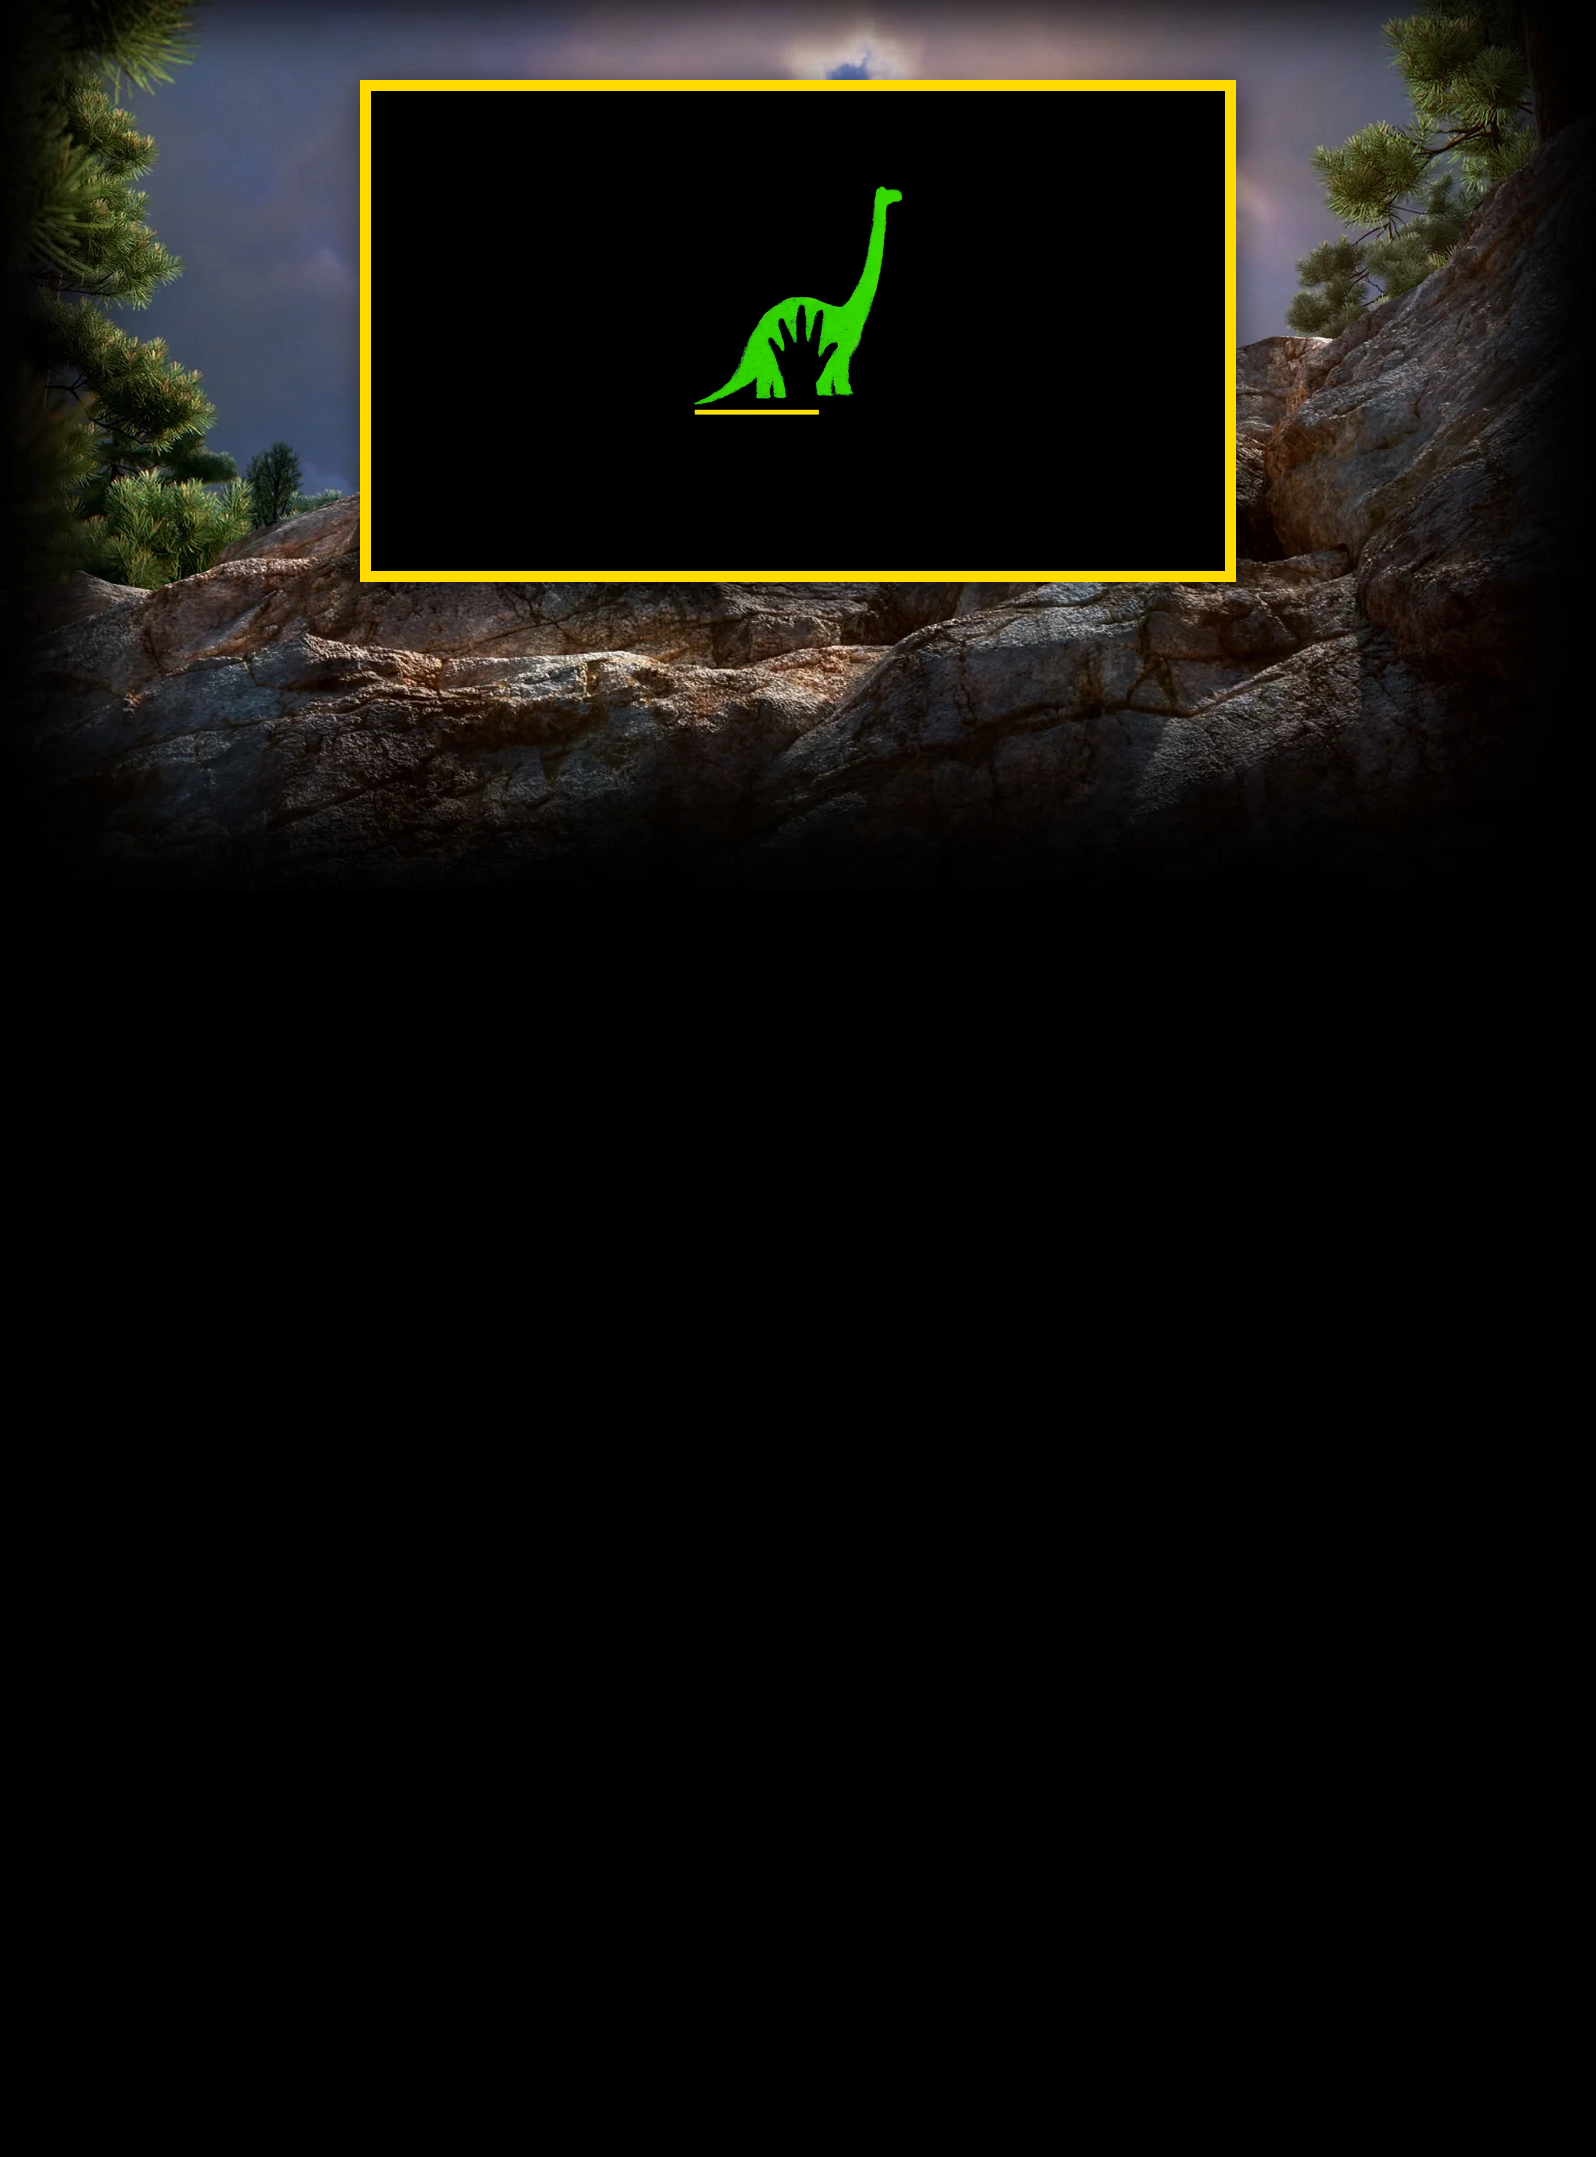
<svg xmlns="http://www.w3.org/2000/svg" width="1596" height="2157">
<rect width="100%" height="100%" fill="#000"/>
<image x="0" y="0" width="1596" height="891" href="media/1.png"/>
<rect x="364" y="84" width="876" height="502" fill="#00000096" filter="blur(17.5px)"/>
<rect x="365.5" y="85.5" width="865" height="491" fill="#000" stroke="#ffdb00" stroke-width="11"/>
<image x="692" y="186" width="212" height="229" href="media/2.png"/>
</svg>
